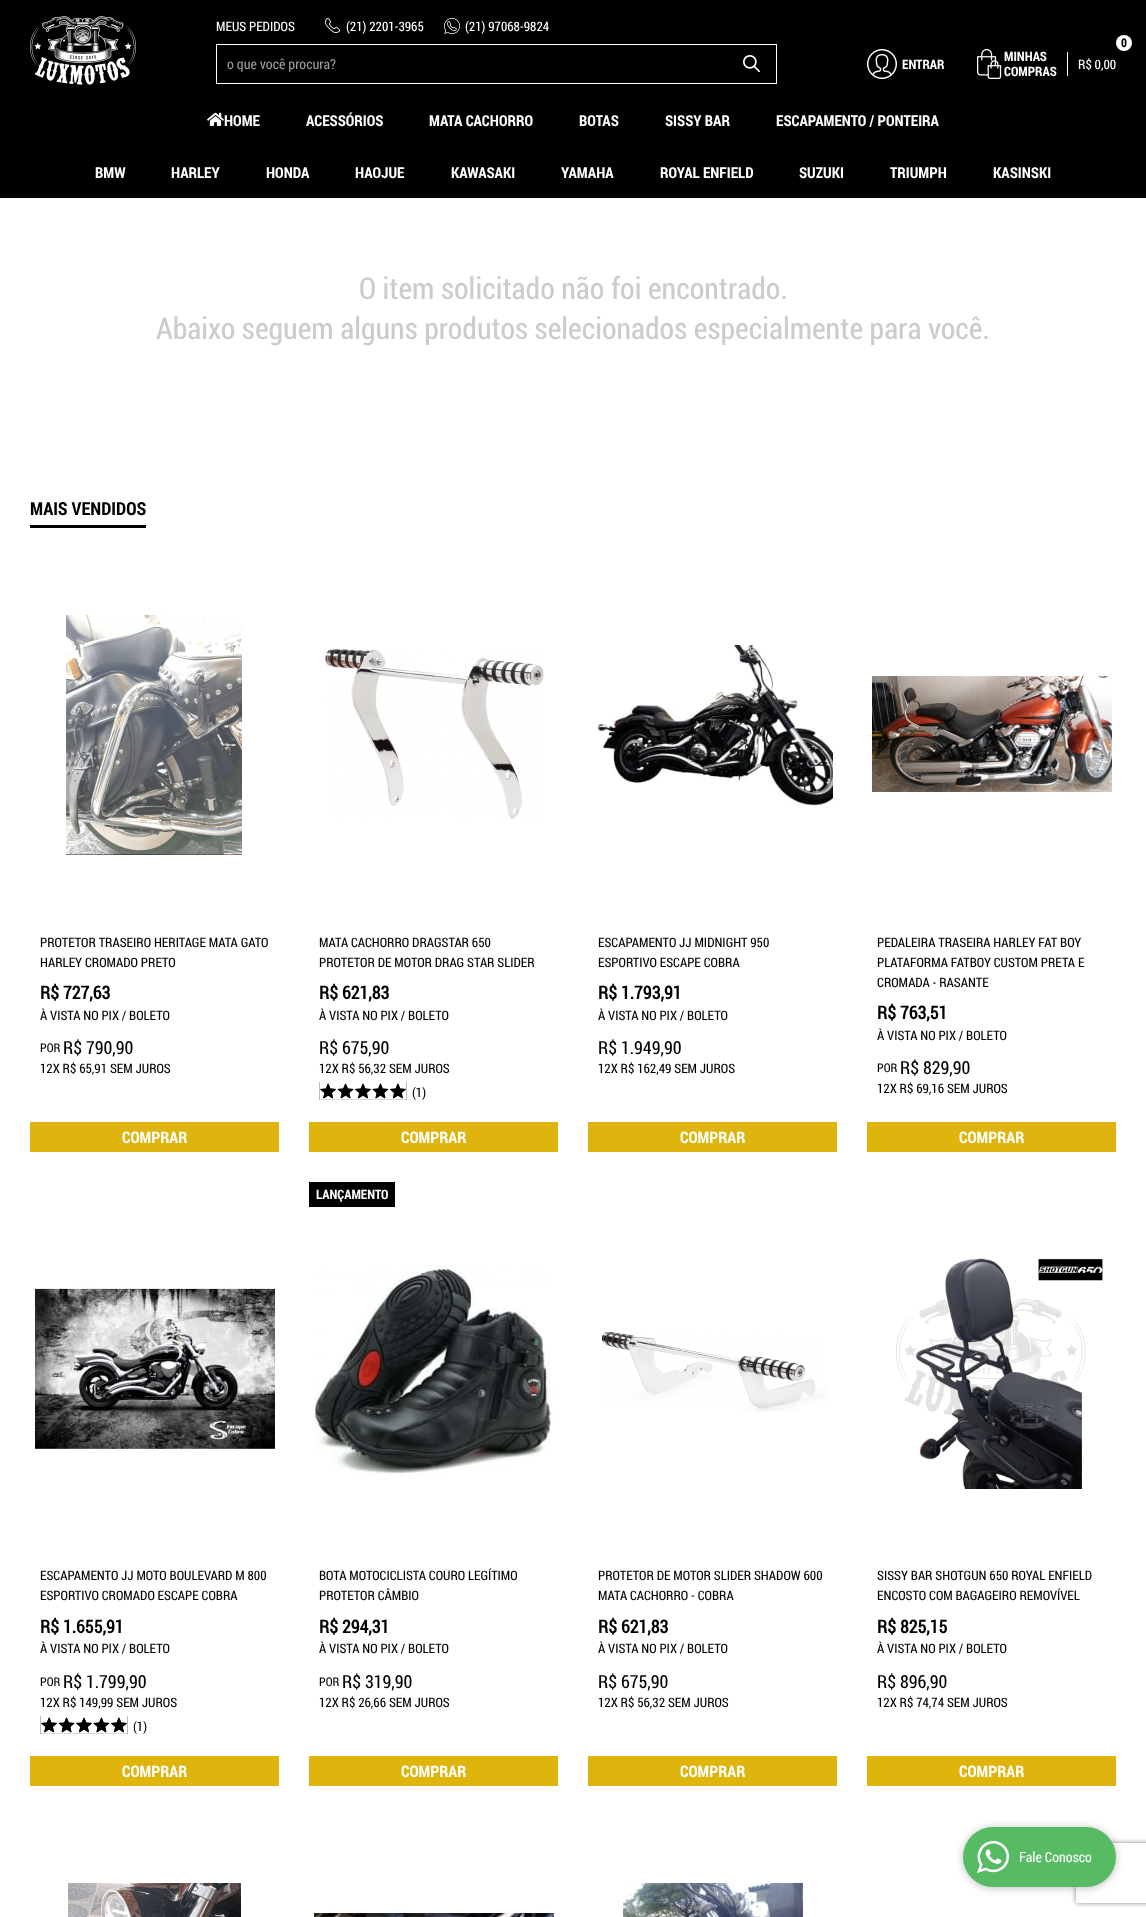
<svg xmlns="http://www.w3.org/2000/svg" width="1146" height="1917">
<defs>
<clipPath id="clip1"><path d="M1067 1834h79v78h-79zm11 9h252c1 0 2 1 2 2v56c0 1-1 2-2 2h-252c-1 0-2-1-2-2v-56c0-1 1-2 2-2z" clip-rule="evenodd"/></clipPath>
</defs>
<rect width="100%" height="100%" fill="#fff"/>
<rect width="1146" height="198" fill="#000"/>
<text x="216" y="31" style="font-family:Roboto Condensed;font-size:13px;fill:#fff">MEUS PEDIDOS</text>
<image x="325" y="18" width="15" height="15" href="media/1.png"/>
<text x="346" y="31" style="font-family:Roboto Condensed;font-size:13px;fill:#fff">(21) 2201-3965</text>
<image x="444" y="18" width="16" height="16" href="media/2.png"/>
<text x="465" y="31" style="font-family:Roboto Condensed;font-size:13px;fill:#fff">(21) 97068-9824</text>
<image x="30" y="16" width="106" height="69" href="media/3.png"/>
<rect x="216.5" y="44.5" width="560" height="39" fill="none" stroke="#fff"/>
<text x="227" y="69" style="font-family:Roboto Condensed;font-size:14px;fill:#999">o que você procura?</text>
<image x="743" y="55" width="17" height="18" href="media/4.png"/>
<image x="867" y="49" width="30" height="30" href="media/5.png"/>
<text x="902" y="69" style="font-family:Roboto Condensed;font-size:13px;font-weight:bold;fill:#fff">ENTRAR</text>
<circle cx="1124" cy="43" r="8" fill="#fff"/>
<text x="1121" y="47" style="font-family:Roboto Condensed;font-size:12px;font-weight:bold;fill:#000">0</text>
<image x="977" y="49" width="25" height="30" href="media/6.png"/>
<text x="1004" y="61" style="font-family:Roboto Condensed;font-size:13px;font-weight:bold;fill:#fff">MINHAS</text>
<text x="1004" y="76" style="font-family:Roboto Condensed;font-size:13px;font-weight:bold;fill:#fff">COMPRAS</text>
<rect x="1067" y="52" width="1" height="24" fill="#fff"/>
<text x="1078" y="69" style="font-family:Roboto Condensed;font-size:13px;fill:#fff">R$ 0,00</text>
<image x="207" y="112" width="17" height="14" href="media/7.png"/>
<text x="224" y="126" style="font-family:Roboto Condensed;font-size:15px;font-weight:bold;fill:#fff">HOME</text>
<text x="306" y="126" style="font-family:Roboto Condensed;font-size:15px;font-weight:bold;fill:#fff">ACESSÓRIOS</text>
<text x="429" y="126" style="font-family:Roboto Condensed;font-size:15px;font-weight:bold;fill:#fff">MATA CACHORRO</text>
<text x="579" y="126" style="font-family:Roboto Condensed;font-size:15px;font-weight:bold;fill:#fff">BOTAS</text>
<text x="665" y="126" style="font-family:Roboto Condensed;font-size:15px;font-weight:bold;fill:#fff">SISSY BAR</text>
<text x="776" y="126" style="font-family:Roboto Condensed;font-size:15px;font-weight:bold;fill:#fff">ESCAPAMENTO / PONTEIRA</text>
<text x="95" y="178" style="font-family:Roboto Condensed;font-size:15px;font-weight:bold;fill:#fff">BMW</text>
<text x="171" y="178" style="font-family:Roboto Condensed;font-size:15px;font-weight:bold;fill:#fff">HARLEY</text>
<text x="266" y="178" style="font-family:Roboto Condensed;font-size:15px;font-weight:bold;fill:#fff">HONDA</text>
<text x="355" y="178" style="font-family:Roboto Condensed;font-size:15px;font-weight:bold;fill:#fff">HAOJUE</text>
<text x="451" y="178" style="font-family:Roboto Condensed;font-size:15px;font-weight:bold;fill:#fff">KAWASAKI</text>
<text x="561" y="178" style="font-family:Roboto Condensed;font-size:15px;font-weight:bold;fill:#fff">YAMAHA</text>
<text x="660" y="178" style="font-family:Roboto Condensed;font-size:15px;font-weight:bold;fill:#fff">ROYAL ENFIELD</text>
<text x="799" y="178" style="font-family:Roboto Condensed;font-size:15px;font-weight:bold;fill:#fff">SUZUKI</text>
<text x="890" y="178" style="font-family:Roboto Condensed;font-size:15px;font-weight:bold;fill:#fff">TRIUMPH</text>
<text x="993" y="178" style="font-family:Roboto Condensed;font-size:15px;font-weight:bold;fill:#fff">KASINSKI</text>
<text x="359" y="299" style="font-family:Roboto Condensed;font-size:30px;fill:#ccc">O item solicitado não foi encontrado.</text>
<text x="156" y="339" style="font-family:Roboto Condensed;font-size:30px;fill:#ccc">Abaixo seguem alguns produtos selecionados especialmente para você.</text>
<rect x="30" y="525" width="116" height="3" fill="#000"/>
<text x="30" y="515" style="font-family:Roboto Condensed;font-size:18px;font-weight:bold;fill:#000">MAIS VENDIDOS</text>
<image x="65" y="615" width="177" height="240" href="media/8.png"/>
<text x="40" y="947" style="font-family:Roboto Condensed;font-size:13px;fill:#000">PROTETOR TRASEIRO HERITAGE MATA GATO</text>
<text x="40" y="967" style="font-family:Roboto Condensed;font-size:13px;fill:#000">HARLEY CROMADO PRETO</text>
<text x="40" y="999" style="font-family:'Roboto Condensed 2';font-size:18px;font-weight:bold;fill:#000">R$ 727,63</text>
<text x="40" y="1020" style="font-family:Roboto Condensed;font-size:13px;fill:#000">À VISTA NO PIX / BOLETO</text>
<text x="40" y="1052" style="font-family:Roboto Condensed;font-size:12px;fill:#000">POR</text>
<text x="63" y="1054" style="font-family:Roboto Condensed;font-size:18px;fill:#000">R$ 790,90</text>
<text x="40" y="1073" style="font-family:Roboto Condensed;font-size:13px;fill:#000">12X R$ 65,91 SEM JUROS</text>
<rect x="30" y="1122" width="249" height="30" fill="#deb40d"/>
<text x="122" y="1143" style="font-family:Roboto Condensed;font-size:16px;font-weight:bold;fill:#fff">COMPRAR</text>
<image x="325" y="648" width="219" height="171" href="media/9.png"/>
<text x="319" y="947" style="font-family:Roboto Condensed;font-size:13px;fill:#000">MATA CACHORRO DRAGSTAR 650</text>
<text x="319" y="967" style="font-family:Roboto Condensed;font-size:13px;fill:#000">PROTETOR DE MOTOR DRAG STAR SLIDER</text>
<text x="319" y="999" style="font-family:'Roboto Condensed 2';font-size:18px;font-weight:bold;fill:#000">R$ 621,83</text>
<text x="319" y="1020" style="font-family:Roboto Condensed;font-size:13px;fill:#000">À VISTA NO PIX / BOLETO</text>
<text x="319" y="1054" style="font-family:Roboto Condensed;font-size:18px;fill:#000">R$ 675,90</text>
<text x="319" y="1073" style="font-family:Roboto Condensed;font-size:13px;fill:#000">12X R$ 56,32 SEM JUROS</text>
<rect x="319" y="1082" width="88" height="18" fill="#000"/>
<image x="319" y="1082" width="88" height="18" href="media/10.png"/>
<text x="412" y="1097" style="font-family:Roboto Condensed;font-size:13px;fill:#000">(1)</text>
<rect x="309" y="1122" width="249" height="30" fill="#deb40d"/>
<text x="401" y="1143" style="font-family:Roboto Condensed;font-size:16px;font-weight:bold;fill:#fff">COMPRAR</text>
<image x="597" y="640" width="236" height="167" href="media/11.png"/>
<text x="598" y="947" style="font-family:Roboto Condensed;font-size:13px;fill:#000">ESCAPAMENTO JJ MIDNIGHT 950</text>
<text x="598" y="967" style="font-family:Roboto Condensed;font-size:13px;fill:#000">ESPORTIVO ESCAPE COBRA</text>
<text x="598" y="999" style="font-family:'Roboto Condensed 2';font-size:18px;font-weight:bold;fill:#000">R$ 1.793,91</text>
<text x="598" y="1020" style="font-family:Roboto Condensed;font-size:13px;fill:#000">À VISTA NO PIX / BOLETO</text>
<text x="598" y="1054" style="font-family:Roboto Condensed;font-size:18px;fill:#000">R$ 1.949,90</text>
<text x="598" y="1073" style="font-family:Roboto Condensed;font-size:13px;fill:#000">12X R$ 162,49 SEM JUROS</text>
<rect x="588" y="1122" width="249" height="30" fill="#deb40d"/>
<text x="680" y="1143" style="font-family:Roboto Condensed;font-size:16px;font-weight:bold;fill:#fff">COMPRAR</text>
<image x="872" y="673" width="240" height="124" href="media/12.png"/>
<text x="877" y="947" style="font-family:Roboto Condensed;font-size:13px;fill:#000">PEDALEIRA TRASEIRA HARLEY FAT BOY</text>
<text x="877" y="967" style="font-family:Roboto Condensed;font-size:13px;fill:#000">PLATAFORMA FATBOY CUSTOM PRETA E</text>
<text x="877" y="987" style="font-family:Roboto Condensed;font-size:13px;fill:#000">CROMADA - RASANTE</text>
<text x="877" y="1019" style="font-family:'Roboto Condensed 2';font-size:18px;font-weight:bold;fill:#000">R$ 763,51</text>
<text x="877" y="1040" style="font-family:Roboto Condensed;font-size:13px;fill:#000">À VISTA NO PIX / BOLETO</text>
<text x="877" y="1072" style="font-family:Roboto Condensed;font-size:12px;fill:#000">POR</text>
<text x="900" y="1074" style="font-family:Roboto Condensed;font-size:18px;fill:#000">R$ 829,90</text>
<text x="877" y="1093" style="font-family:Roboto Condensed;font-size:13px;fill:#000">12X R$ 69,16 SEM JUROS</text>
<rect x="867" y="1122" width="249" height="30" fill="#deb40d"/>
<text x="959" y="1143" style="font-family:Roboto Condensed;font-size:16px;font-weight:bold;fill:#fff">COMPRAR</text>
<image x="35" y="1287" width="240" height="162" href="media/13.png"/>
<text x="40" y="1580" style="font-family:Roboto Condensed;font-size:13px;fill:#000">ESCAPAMENTO JJ MOTO BOULEVARD M 800</text>
<text x="40" y="1600" style="font-family:Roboto Condensed;font-size:13px;fill:#000">ESPORTIVO CROMADO ESCAPE COBRA</text>
<text x="40" y="1633" style="font-family:'Roboto Condensed 2';font-size:18px;font-weight:bold;fill:#000">R$ 1.655,91</text>
<text x="40" y="1653" style="font-family:Roboto Condensed;font-size:13px;fill:#000">À VISTA NO PIX / BOLETO</text>
<text x="40" y="1686" style="font-family:Roboto Condensed;font-size:12px;fill:#000">POR</text>
<text x="63" y="1688" style="font-family:Roboto Condensed;font-size:18px;fill:#000">R$ 1.799,90</text>
<text x="40" y="1707" style="font-family:Roboto Condensed;font-size:13px;fill:#000">12X R$ 149,99 SEM JUROS</text>
<rect x="40" y="1716" width="88" height="18" fill="#000"/>
<image x="40" y="1716" width="88" height="18" href="media/10.png"/>
<text x="133" y="1731" style="font-family:Roboto Condensed;font-size:13px;fill:#000">(1)</text>
<rect x="30" y="1756" width="249" height="30" fill="#deb40d"/>
<text x="122" y="1777" style="font-family:Roboto Condensed;font-size:16px;font-weight:bold;fill:#fff">COMPRAR</text>
<rect x="309" y="1182" width="86" height="25" fill="#000"/>
<text x="316" y="1199" style="font-family:Roboto Condensed;font-size:13px;font-weight:bold;fill:#fff">LANÇAMENTO</text>
<image x="314" y="1265" width="240" height="210" href="media/14.png"/>
<text x="319" y="1580" style="font-family:Roboto Condensed;font-size:13px;fill:#000">BOTA MOTOCICLISTA COURO LEGÍTIMO</text>
<text x="319" y="1600" style="font-family:Roboto Condensed;font-size:13px;fill:#000">PROTETOR CÂMBIO</text>
<text x="319" y="1633" style="font-family:'Roboto Condensed 2';font-size:18px;font-weight:bold;fill:#000">R$ 294,31</text>
<text x="319" y="1653" style="font-family:Roboto Condensed;font-size:13px;fill:#000">À VISTA NO PIX / BOLETO</text>
<text x="319" y="1686" style="font-family:Roboto Condensed;font-size:12px;fill:#000">POR</text>
<text x="342" y="1688" style="font-family:Roboto Condensed;font-size:18px;fill:#000">R$ 319,90</text>
<text x="319" y="1707" style="font-family:Roboto Condensed;font-size:13px;fill:#000">12X R$ 26,66 SEM JUROS</text>
<rect x="309" y="1756" width="249" height="30" fill="#deb40d"/>
<text x="401" y="1777" style="font-family:Roboto Condensed;font-size:16px;font-weight:bold;fill:#fff">COMPRAR</text>
<image x="601" y="1331" width="227" height="81" href="media/15.png"/>
<text x="598" y="1580" style="font-family:Roboto Condensed;font-size:13px;fill:#000">PROTETOR DE MOTOR SLIDER SHADOW 600</text>
<text x="598" y="1600" style="font-family:Roboto Condensed;font-size:13px;fill:#000">MATA CACHORRO - COBRA</text>
<text x="598" y="1633" style="font-family:'Roboto Condensed 2';font-size:18px;font-weight:bold;fill:#000">R$ 621,83</text>
<text x="598" y="1653" style="font-family:Roboto Condensed;font-size:13px;fill:#000">À VISTA NO PIX / BOLETO</text>
<text x="598" y="1688" style="font-family:Roboto Condensed;font-size:18px;fill:#000">R$ 675,90</text>
<text x="598" y="1707" style="font-family:Roboto Condensed;font-size:13px;fill:#000">12X R$ 56,32 SEM JUROS</text>
<rect x="588" y="1756" width="249" height="30" fill="#deb40d"/>
<text x="680" y="1777" style="font-family:Roboto Condensed;font-size:16px;font-weight:bold;fill:#fff">COMPRAR</text>
<image x="896" y="1258" width="207" height="231" href="media/16.png"/>
<text x="877" y="1580" style="font-family:Roboto Condensed;font-size:13px;fill:#000">SISSY BAR SHOTGUN 650 ROYAL ENFIELD</text>
<text x="877" y="1600" style="font-family:Roboto Condensed;font-size:13px;fill:#000">ENCOSTO COM BAGAGEIRO REMOVÍVEL</text>
<text x="877" y="1633" style="font-family:'Roboto Condensed 2';font-size:18px;font-weight:bold;fill:#000">R$ 825,15</text>
<text x="877" y="1653" style="font-family:Roboto Condensed;font-size:13px;fill:#000">À VISTA NO PIX / BOLETO</text>
<text x="877" y="1688" style="font-family:Roboto Condensed;font-size:18px;fill:#000">R$ 896,90</text>
<text x="877" y="1707" style="font-family:Roboto Condensed;font-size:13px;fill:#000">12X R$ 74,74 SEM JUROS</text>
<rect x="867" y="1756" width="249" height="30" fill="#deb40d"/>
<text x="959" y="1777" style="font-family:Roboto Condensed;font-size:16px;font-weight:bold;fill:#fff">COMPRAR</text>
<image x="68" y="1883" width="173" height="34" href="media/17.png"/>
<image x="314" y="1907" width="240" height="10" href="media/18.png"/>
<image x="621" y="1883" width="182" height="34" href="media/19.png"/>
<rect x="963" y="1828" width="153" height="60" rx="30" fill="#00000040" filter="blur(4px)"/>
<g clip-path="url(#clip1)">
<rect x="1076" y="1843" width="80" height="60" rx="2" fill="#808080" filter="blur(2.5px)"/>
</g>
<rect x="963" y="1827" width="153" height="60" rx="30" fill="#57bb63"/>
<image x="977" y="1841" width="32" height="32" href="media/20.png"/>
<text x="1019" y="1862" style="font-family:Roboto Condensed;font-size:14px;fill:#fff">Fale Conosco</text>
</svg>
